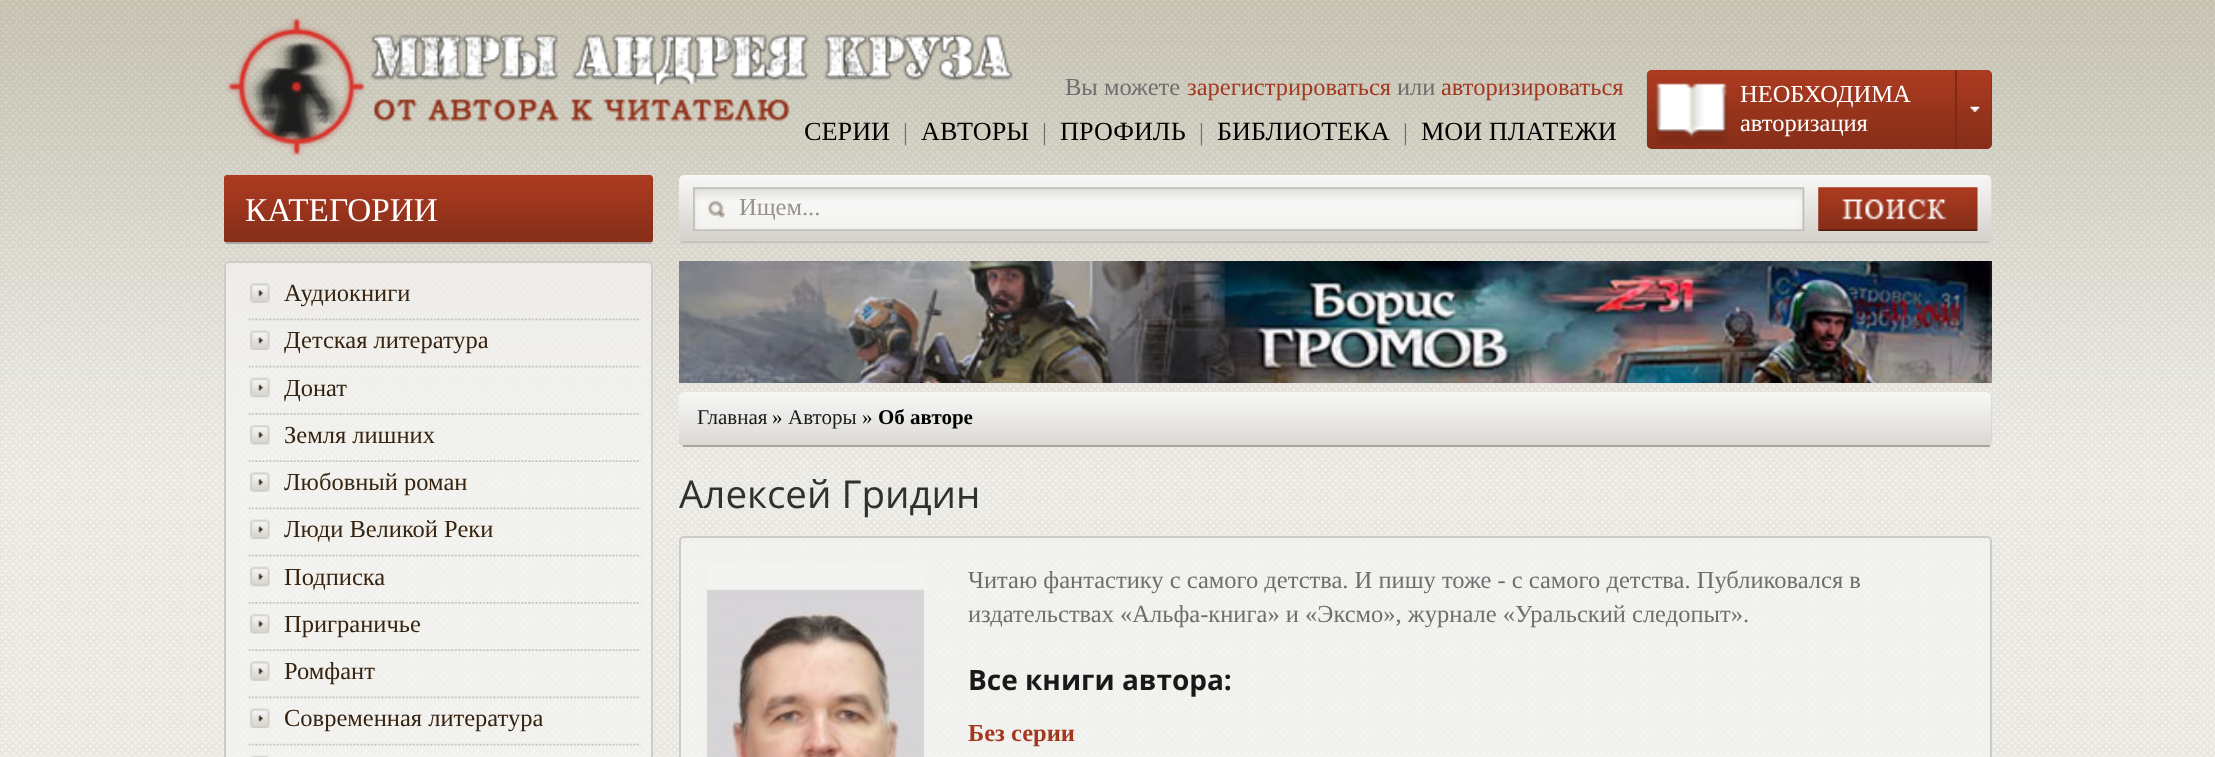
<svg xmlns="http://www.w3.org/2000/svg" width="2215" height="757">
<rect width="100%" height="100%" fill="#fff"/>
<image x="0" y="0" width="2215" height="757" href="media/1.png"/>
<image x="225" y="17" width="788" height="139" href="media/2.png"/>
<text x="1065" y="95" style="font-family:Liberation Serif;font-size:24.5px;fill:#6e6e6e">Вы можете</text>
<text x="1187" y="95" style="font-family:Liberation Serif;font-size:24.5px;fill:#a4381f">зарегистрироваться</text>
<text x="1397" y="95" style="font-family:Liberation Serif;font-size:24.5px;fill:#6e6e6e">или</text>
<text x="1441" y="95" style="font-family:Liberation Serif;font-size:24.5px;fill:#a4381f">авторизироваться</text>
<text x="804" y="140" style="font-family:Liberation Serif;font-size:26.25px;fill:#000">СЕРИИ</text>
<text x="903" y="140" style="font-family:Liberation Serif;font-size:24.5px;fill:#6e6e6e">|</text>
<text x="921" y="140" style="font-family:Liberation Serif;font-size:26.25px;fill:#000">АВТОРЫ</text>
<text x="1042" y="140" style="font-family:Liberation Serif;font-size:24.5px;fill:#6e6e6e">|</text>
<text x="1060" y="140" style="font-family:Liberation Serif;font-size:26.25px;fill:#000">ПРОФИЛЬ</text>
<text x="1199" y="140" style="font-family:Liberation Serif;font-size:24.5px;fill:#6e6e6e">|</text>
<text x="1217" y="140" style="font-family:Liberation Serif;font-size:26.25px;fill:#000">БИБЛИОТЕКА</text>
<text x="1403" y="140" style="font-family:Liberation Serif;font-size:24.5px;fill:#6e6e6e">|</text>
<text x="1421" y="140" style="font-family:Liberation Serif;font-size:26.25px;fill:#000">МОИ ПЛАТЕЖИ</text>
<rect x="1647" y="70" width="345" height="79" rx="5" fill="#882e19"/>
<image x="1646" y="70" width="346" height="79" href="media/3.png"/>
<image x="1655" y="83" width="73" height="62" href="media/4.png"/>
<text x="1740" y="102" style="font-family:Liberation Serif;font-size:24.5px;fill:#fff">НЕОБХОДИМА</text>
<text x="1740" y="131" style="font-family:Liberation Serif;font-size:24.5px;fill:#fff">авторизация</text>
<image x="1970" y="106" width="10" height="6" href="media/5.png"/>
<rect x="1955" y="70" width="2" height="79" fill="#7c2a17"/>
<rect x="224" y="175" width="429" height="68" rx="4" fill="#882e19"/>
<image x="224" y="175" width="429" height="67" href="media/6.png"/>
<rect x="226" y="242" width="425" height="2" fill="#a8a6a1"/>
<text x="245" y="221" style="font-family:Liberation Serif;font-size:33.25px;fill:#fff">КАТЕГОРИИ</text>
<image x="224" y="261" width="429" height="496" href="media/7.png"/>
<rect x="225" y="262" width="427" height="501" rx="4" fill="none" stroke="#cdcbc4" stroke-width="2"/>
<image x="248" y="318" width="393" height="3" href="media/8.png"/>
<image x="250" y="283" width="20" height="20" href="media/9.png"/>
<text x="284" y="301" style="font-family:Liberation Serif;font-size:24.5px;fill:#35230f">Аудиокниги</text>
<image x="248" y="365" width="393" height="3" href="media/10.png"/>
<image x="250" y="330" width="20" height="20" href="media/11.png"/>
<text x="284" y="348" style="font-family:Liberation Serif;font-size:24.5px;fill:#35230f">Детская литература</text>
<image x="248" y="413" width="393" height="2" href="media/12.png"/>
<image x="250" y="377" width="20" height="21" href="media/13.png"/>
<text x="284" y="396" style="font-family:Liberation Serif;font-size:24.5px;fill:#35230f">Донат</text>
<image x="248" y="460" width="393" height="2" href="media/14.png"/>
<image x="250" y="425" width="20" height="20" href="media/15.png"/>
<text x="284" y="443" style="font-family:Liberation Serif;font-size:24.5px;fill:#35230f">Земля лишних</text>
<image x="248" y="507" width="393" height="3" href="media/16.png"/>
<image x="250" y="472" width="20" height="20" href="media/17.png"/>
<text x="284" y="490" style="font-family:Liberation Serif;font-size:24.5px;fill:#35230f">Любовный роман</text>
<image x="248" y="554" width="393" height="3" href="media/18.png"/>
<image x="250" y="519" width="20" height="20" href="media/19.png"/>
<text x="284" y="537" style="font-family:Liberation Serif;font-size:24.5px;fill:#35230f">Люди Великой Реки</text>
<image x="248" y="602" width="393" height="2" href="media/20.png"/>
<image x="250" y="566" width="20" height="21" href="media/21.png"/>
<text x="284" y="585" style="font-family:Liberation Serif;font-size:24.5px;fill:#35230f">Подписка</text>
<image x="248" y="649" width="393" height="2" href="media/22.png"/>
<image x="250" y="614" width="20" height="20" href="media/23.png"/>
<text x="284" y="632" style="font-family:Liberation Serif;font-size:24.5px;fill:#35230f">Приграничье</text>
<image x="248" y="696" width="393" height="3" href="media/24.png"/>
<image x="250" y="661" width="20" height="20" href="media/25.png"/>
<text x="284" y="679" style="font-family:Liberation Serif;font-size:24.5px;fill:#35230f">Ромфант</text>
<image x="248" y="743" width="393" height="3" href="media/26.png"/>
<image x="250" y="708" width="20" height="20" href="media/27.png"/>
<text x="284" y="726" style="font-family:Liberation Serif;font-size:24.5px;fill:#35230f">Современная литература</text>
<image x="250" y="755" width="19" height="2" href="media/28.png"/>
<image x="679" y="175" width="1313" height="68" href="media/29.png"/>
<image x="693" y="187" width="1112" height="44" href="media/30.png"/>
<text x="739" y="215" style="font-family:Liberation Serif;font-size:24.5px;fill:#98928b">Ищем...</text>
<image x="1818" y="187" width="160" height="44" href="media/31.png"/>
<image x="679" y="261" width="1313" height="122" href="media/32.png"/>
<rect x="679" y="392" width="1313" height="54" rx="5" fill="#d6d3cc"/>
<image x="679" y="392" width="1313" height="54" href="media/33.png"/>
<rect x="683" y="445" width="1307" height="2" fill="#a8a6a1"/>
<text x="697" y="424" style="font-family:Liberation Serif;font-size:21px;fill:#191919">Главная</text>
<text x="772" y="424" style="font-family:Liberation Serif;font-size:21px;fill:#000">»</text>
<text x="788" y="424" style="font-family:Liberation Serif;font-size:21px;fill:#191919">Авторы</text>
<text x="862" y="424" style="font-family:Liberation Serif;font-size:21px;fill:#000">»</text>
<text x="878" y="424" style="font-family:Liberation Serif;font-size:21px;font-weight:bold;fill:#000">Об авторе</text>
<text x="679" y="508" style="font-family:Open Sans;font-size:38.5px;fill:#303030">Алексей Гридин</text>
<image x="679" y="536" width="1312" height="221" href="media/34.png"/>
<rect x="680" y="537" width="1311" height="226" rx="4" fill="none" stroke="#cdcbc4" stroke-width="2"/>
<image x="707" y="564" width="217" height="193" href="media/35.png"/>
<text x="968" y="588" style="font-family:Liberation Serif;font-size:24.5px;fill:#6e6e6e">Читаю фантастику с самого детства. И пишу тоже - с самого детства. Публиковался в</text>
<text x="968" y="622" style="font-family:Liberation Serif;font-size:24.5px;fill:#6e6e6e">издательствах «Альфа-книга» и «Эксмо», журнале «Уральский следопыт».</text>
<text x="968" y="690" style="font-family:Open Sans;font-size:28px;font-weight:bold;fill:#191919">Все книги автора:</text>
<text x="968" y="741" style="font-family:Liberation Serif;font-size:24.5px;font-weight:bold;fill:#a4381f">Без серии</text>
</svg>
